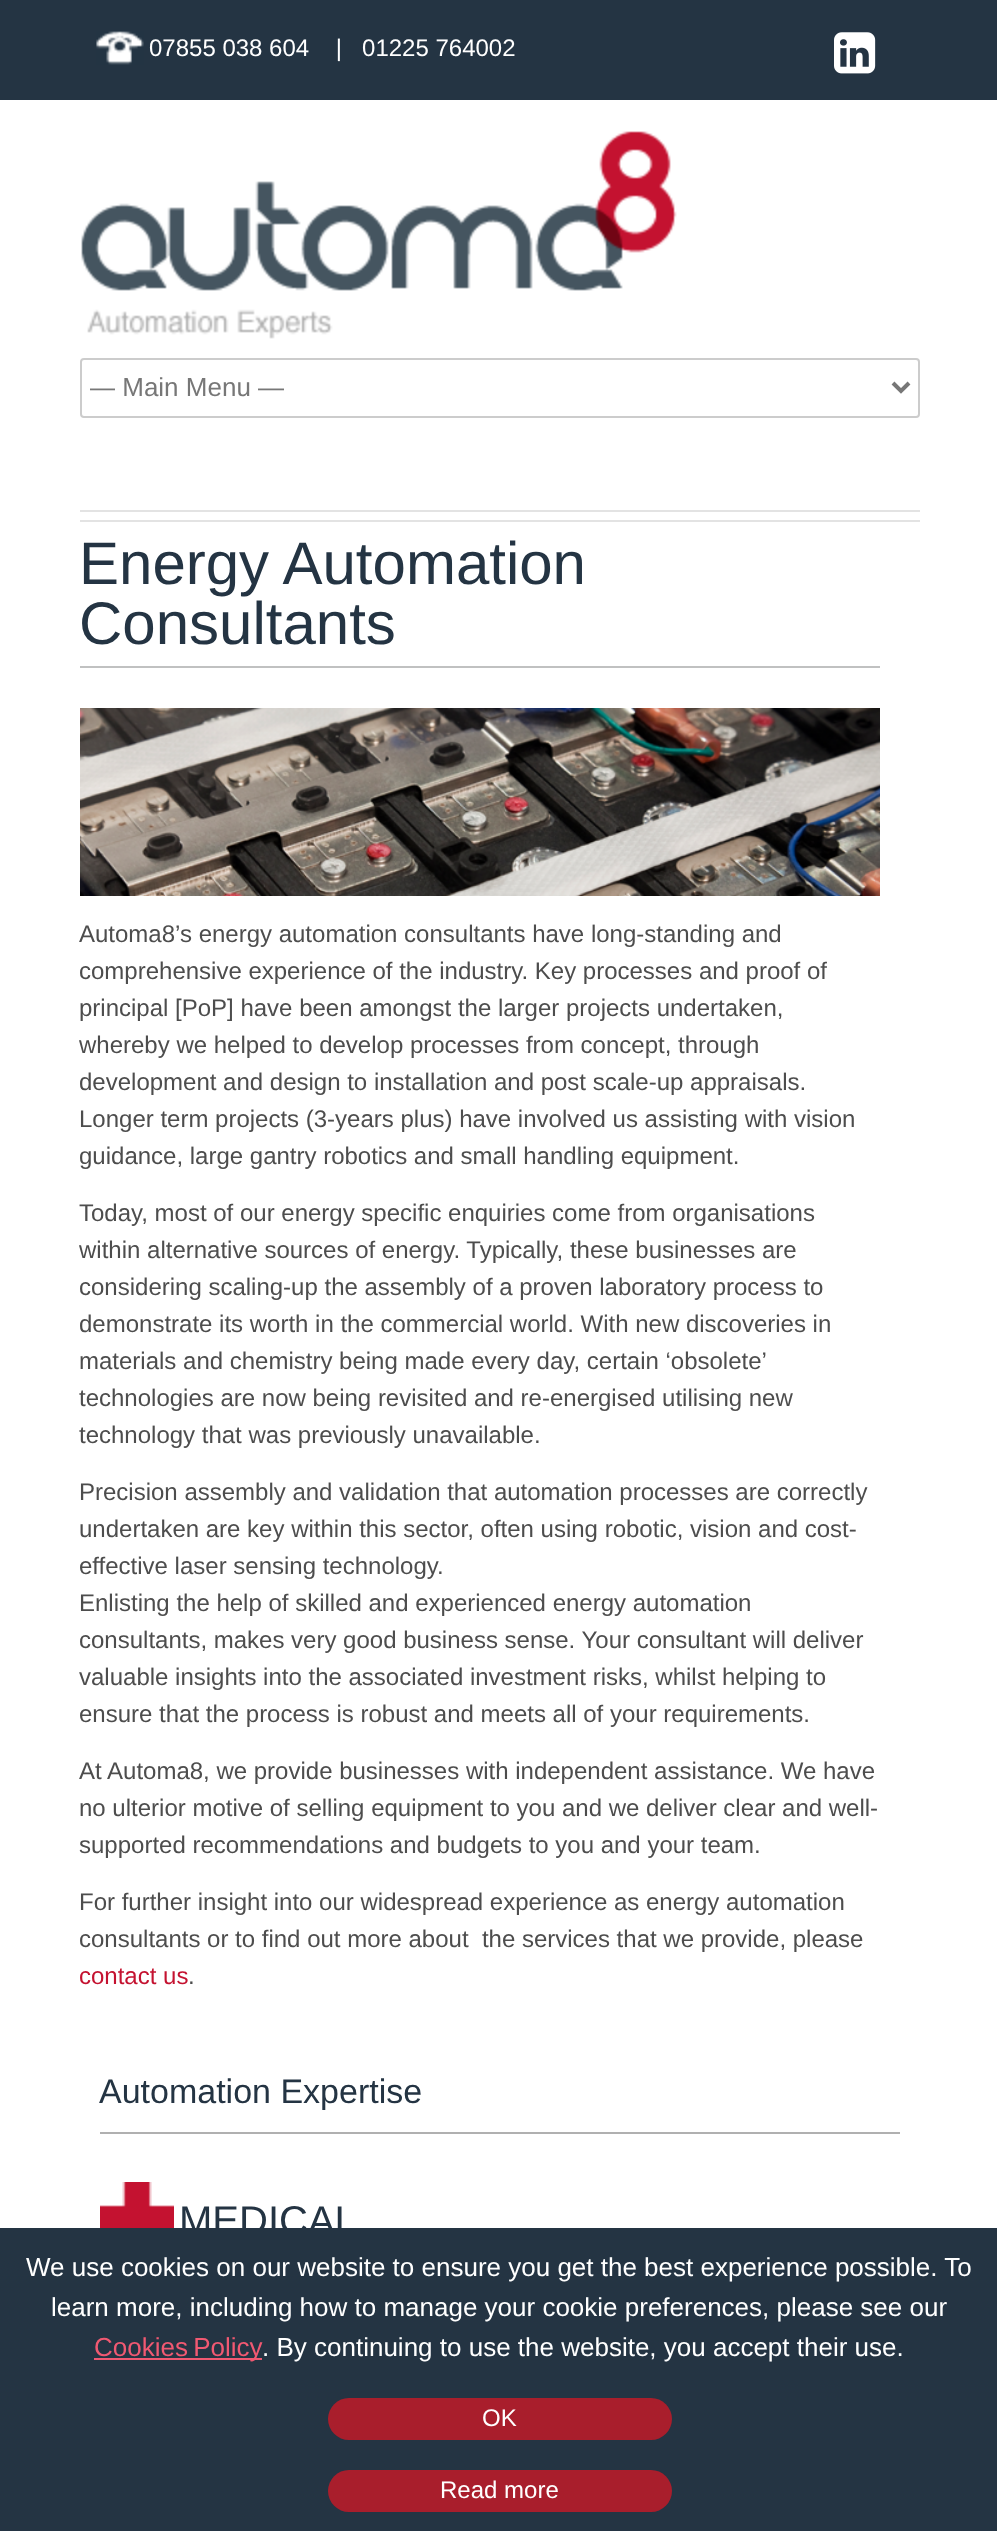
<svg xmlns="http://www.w3.org/2000/svg" width="997" height="2531">
<defs>
<clipPath id="clip1"><rect x="90" y="370" width="796" height="34"/></clipPath>
</defs>
<rect width="100%" height="100%" fill="#fff"/>
<rect width="997" height="100" fill="#243443"/>
<image x="96" y="31" width="48" height="34" href="media/1.png"/>
<text x="149" y="56" style="font-family:Liberation Sans;font-size:24px;fill:#fff" xml:space="preserve">07855 038 604    |   01225 764002</text>
<image x="834" y="32" width="42" height="42" href="media/2.png"/>
<image x="81" y="131" width="596" height="208" href="media/3.png"/>
<rect x="81" y="359" width="838" height="58" rx="3" fill="none" stroke="#ccc" stroke-width="2"/>
<path d="M893 383l8 8l8-8" fill="none" stroke="#777" stroke-width="4"/>
<g clip-path="url(#clip1)">
<text x="89" y="396" style="font-family:Liberation Sans;font-size:26px;fill:#777">— Main Menu —</text>
</g>
<rect x="80" y="510" width="840" height="2" fill="#e3e3e3"/>
<rect x="80" y="520" width="840" height="2" fill="#e3e3e3"/>
<rect x="80" y="666" width="800" height="2" fill="#c0c1c1"/>
<text x="79" y="584" style="font-family:Liberation Sans;font-size:60px;fill:#243443">Energy Automation</text>
<text x="79" y="644" style="font-family:Liberation Sans;font-size:60px;fill:#243443">Consultants</text>
<image x="80" y="708" width="800" height="188" href="media/4.png"/>
<text x="79" y="942" style="font-family:Liberation Sans;font-size:24px;fill:#4d4d4d">Automa8’s energy automation consultants have long-standing and</text>
<text x="79" y="979" style="font-family:Liberation Sans;font-size:24px;fill:#4d4d4d">comprehensive experience of the industry. Key processes and proof of</text>
<text x="79" y="1016" style="font-family:Liberation Sans;font-size:24px;fill:#4d4d4d">principal [PoP] have been amongst the larger projects undertaken,</text>
<text x="79" y="1053" style="font-family:Liberation Sans;font-size:24px;fill:#4d4d4d">whereby we helped to develop processes from concept, through</text>
<text x="79" y="1090" style="font-family:Liberation Sans;font-size:24px;fill:#4d4d4d">development and design to installation and post scale-up appraisals.</text>
<text x="79" y="1127" style="font-family:Liberation Sans;font-size:24px;fill:#4d4d4d">Longer term projects (3-years plus) have involved us assisting with vision</text>
<text x="79" y="1164" style="font-family:Liberation Sans;font-size:24px;fill:#4d4d4d">guidance, large gantry robotics and small handling equipment.</text>
<text x="79" y="1221" style="font-family:Liberation Sans;font-size:24px;fill:#4d4d4d">Today, most of our energy specific enquiries come from organisations</text>
<text x="79" y="1258" style="font-family:Liberation Sans;font-size:24px;fill:#4d4d4d">within alternative sources of energy. Typically, these businesses are</text>
<text x="79" y="1295" style="font-family:Liberation Sans;font-size:24px;fill:#4d4d4d">considering scaling-up the assembly of a proven laboratory process to</text>
<text x="79" y="1332" style="font-family:Liberation Sans;font-size:24px;fill:#4d4d4d">demonstrate its worth in the commercial world. With new discoveries in</text>
<text x="79" y="1369" style="font-family:Liberation Sans;font-size:24px;fill:#4d4d4d">materials and chemistry being made every day, certain ‘obsolete’</text>
<text x="79" y="1406" style="font-family:Liberation Sans;font-size:24px;fill:#4d4d4d">technologies are now being revisited and re-energised utilising new</text>
<text x="79" y="1443" style="font-family:Liberation Sans;font-size:24px;fill:#4d4d4d">technology that was previously unavailable.</text>
<text x="79" y="1500" style="font-family:Liberation Sans;font-size:24px;fill:#4d4d4d">Precision assembly and validation that automation processes are correctly</text>
<text x="79" y="1537" style="font-family:Liberation Sans;font-size:24px;fill:#4d4d4d">undertaken are key within this sector, often using robotic, vision and cost-</text>
<text x="79" y="1574" style="font-family:Liberation Sans;font-size:24px;fill:#4d4d4d">effective laser sensing technology.</text>
<text x="79" y="1611" style="font-family:Liberation Sans;font-size:24px;fill:#4d4d4d">Enlisting the help of skilled and experienced energy automation</text>
<text x="79" y="1648" style="font-family:Liberation Sans;font-size:24px;fill:#4d4d4d">consultants, makes very good business sense. Your consultant will deliver</text>
<text x="79" y="1685" style="font-family:Liberation Sans;font-size:24px;fill:#4d4d4d">valuable insights into the associated investment risks, whilst helping to</text>
<text x="79" y="1722" style="font-family:Liberation Sans;font-size:24px;fill:#4d4d4d">ensure that the process is robust and meets all of your requirements.</text>
<text x="79" y="1779" style="font-family:Liberation Sans;font-size:24px;fill:#4d4d4d">At Automa8, we provide businesses with independent assistance. We have</text>
<text x="79" y="1816" style="font-family:Liberation Sans;font-size:24px;fill:#4d4d4d">no ulterior motive of selling equipment to you and we deliver clear and well-</text>
<text x="79" y="1853" style="font-family:Liberation Sans;font-size:24px;fill:#4d4d4d">supported recommendations and budgets to you and your team.</text>
<text x="79" y="1910" style="font-family:Liberation Sans;font-size:24px;fill:#4d4d4d">For further insight into our widespread experience as energy automation</text>
<text x="79" y="1947" style="font-family:Liberation Sans;font-size:24px;fill:#4d4d4d" xml:space="preserve">consultants or to find out more about  the services that we provide, please</text>
<text x="79" y="1984" style="font-family:Liberation Sans;font-size:24px;fill:#c41230">contact us</text>
<text x="188" y="1984" style="font-family:Liberation Sans;font-size:24px;fill:#4d4d4d">.</text>
<rect x="100" y="2132" width="800" height="2" fill="#b0b0b0"/>
<text x="99" y="2103" style="font-family:Liberation Sans;font-size:34px;fill:#243443">Automation Expertise</text>
<image x="100" y="2182" width="74" height="46" href="media/5.png"/>
<text x="179" y="2234" style="font-family:Liberation Sans;font-size:40px;fill:#243443">MEDICAL</text>
<rect y="2228" width="997" height="303" fill="#243443"/>
<text x="26" y="2276" style="font-family:Liberation Sans;font-size:26px;fill:#fff">We use cookies on our website to ensure you get the best experience possible. To</text>
<text x="51" y="2316" style="font-family:Liberation Sans;font-size:26px;fill:#fff">learn more, including how to manage your cookie preferences, please see our</text>
<rect x="94" y="2358" width="168" height="2" fill="#f15972"/>
<text x="94" y="2356" word-spacing="-2" style="font-family:Liberation Sans;font-size:26px;fill:#f15972">Cookies Policy</text>
<text x="262" y="2356" style="font-family:Liberation Sans;font-size:26px;fill:#fff">. By continuing to use the website, you accept their use.</text>
<rect x="328" y="2398" width="344" height="42" rx="21" fill="#a91e2c"/>
<text x="482" y="2426" style="font-family:Liberation Sans;font-size:24px;fill:#fff">OK</text>
<rect x="328" y="2470" width="344" height="42" rx="21" fill="#a91e2c"/>
<text x="440" y="2498" style="font-family:Liberation Sans;font-size:24px;fill:#fff">Read more</text>
</svg>
